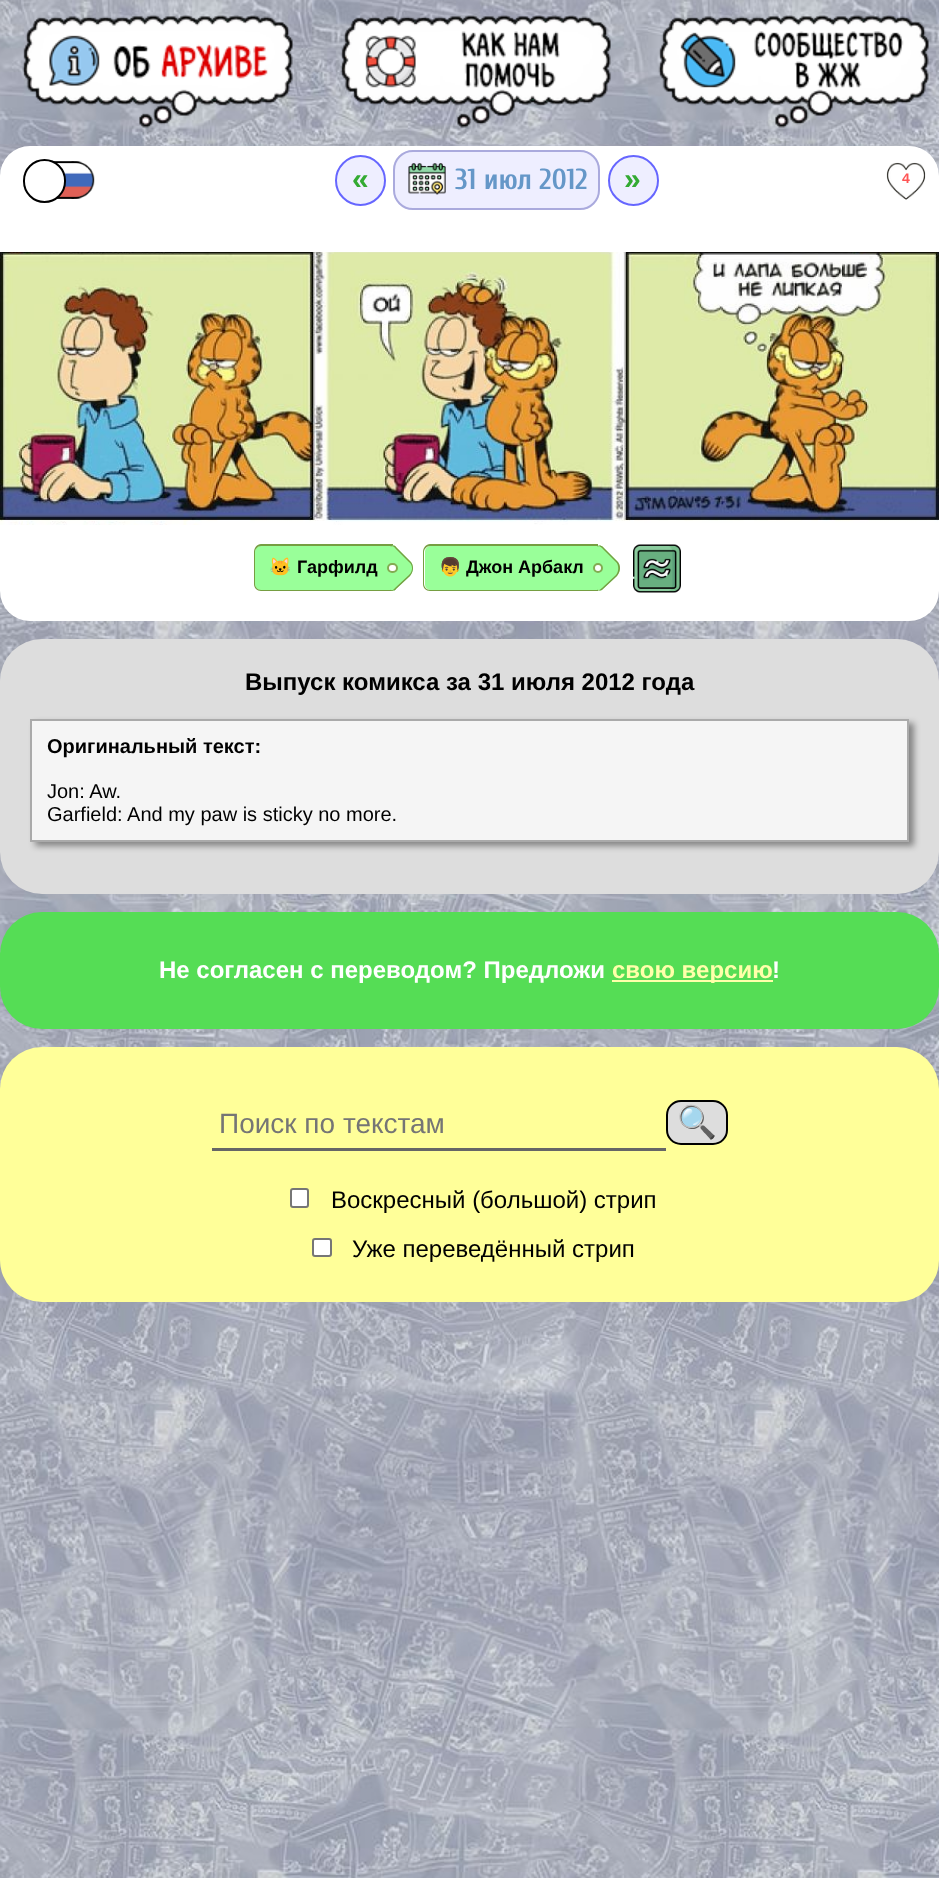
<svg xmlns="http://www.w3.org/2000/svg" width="939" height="1878">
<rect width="100%" height="100%" fill="#fff"/>
<image x="0" y="0" width="939" height="1878" href="media/1.png"/>
<image x="22" y="15" width="271" height="113" href="media/2.png"/>
<image x="340" y="15" width="271" height="113" href="media/3.png"/>
<image x="658" y="15" width="271" height="113" href="media/4.png"/>
<rect y="146" width="939" height="475" rx="30" fill="#fff"/>
<image x="53" y="161" width="42" height="38" href="media/5.png"/>
<rect x="24" y="160" width="41" height="42" rx="20.5" fill="#fff" stroke="#000" stroke-width="2"/>
<circle cx="360.5" cy="180.5" r="24.5" fill="#eef" stroke="#66f" stroke-width="2"/>
<text x="352" y="189" style="font-family:Liberation Sans;font-size:30px;font-weight:bold;fill:#3a3">«</text>
<rect x="393" y="150" width="207" height="60" rx="20" fill="#eef"/>
<image x="408" y="163" width="38" height="32" href="media/6.png"/>
<rect x="394" y="151" width="205" height="58" rx="19" fill="none" stroke="#aad" stroke-width="2"/>
<text x="455" y="189" style="font-family:Cuprum;font-size:29px;font-weight:bold;fill:#6597c8">31 июл 2012</text>
<circle cx="633.5" cy="180.5" r="24.5" fill="#eef" stroke="#66f" stroke-width="2"/>
<text x="624" y="189" style="font-family:Liberation Sans;font-size:30px;font-weight:bold;fill:#3a3">»</text>
<image x="886" y="162" width="40" height="38" href="media/7.png"/>
<text x="902" y="183" style="font-family:Liberation Sans;font-size:14px;font-weight:bold;fill:#f55">4</text>
<image x="0" y="252" width="939" height="273" href="media/8.png"/>
<path d="M261 546h132v44h-132c-3.5 0-6-2.5-6-6v-32c0-3.5 2.5-6 6-6z" fill="#9f9"/>
<path d="M261 544h132v47h-132c-4 0-7-3-7-7v-32c0-4 3-8 7-8zm0 2h132v44h-132c-3 0-6-3-6-6v-32c0-3 3-6 6-6z" fill="#769e42" fill-rule="evenodd"/>
<text x="269" y="573" style="font-family:Noto Color Emoji;font-size:18px;font-weight:bold;fill:#000">🐱</text>
<path d="M396 547l14 14c4 4 4 10 0 15l-14 13c-1 2-4 2-6 0l-21-21l21-21c2-2 5-2 6 0z" fill="#9f9"/>
<text x="297" y="573" style="font-family:Liberation Sans;font-size:18px;font-weight:bold;fill:#000">Гарфилд</text>
<path d="M396 547l14 14c4 4 4 10 0 15l-14 13c-1 2-4 2-6 0l-21-21l21-21c2-2 5-2 6 0zm-1 1l14 14c4 3 4 9 0 13l-14 13c-1 2-4 3-5 1l-21-21l21-21c1-1 4-1 5 1z" fill="#769e42" fill-rule="evenodd"/>
<rect x="388" y="564" width="9" height="8" rx="4" fill="#fff" stroke="#83ab52" stroke-width="2"/>
<path d="M431 546h168v44h-168c-3.5 0-6-2.5-6-6v-32c0-3.5 2.5-6 6-6z" fill="#9f9"/>
<path d="M430 544h168v47h-168c-4 0-7-3-7-7v-32c0-4 3-8 7-8zm0 2h168v44h-168c-3 0-6-3-6-6v-32c0-3 3-6 6-6z" fill="#769e42" fill-rule="evenodd"/>
<text x="439" y="573" style="font-family:Noto Color Emoji;font-size:18px;font-weight:bold;fill:#000">👦</text>
<path d="M603 547l14 14c4 4 4 10 0 15l-14 13c-2 2-5 2-6 0l-22-21l22-21c1-2 4-2 6 0z" fill="#9f9"/>
<text x="466" y="573" style="font-family:Liberation Sans;font-size:18px;font-weight:bold;fill:#000">Джон Арбакл</text>
<path d="M603 547l14 14c4 4 4 10 0 15l-14 13c-2 2-5 2-6 0l-22-21l22-21c1-2 4-2 6 0zm-1 1l14 14c3 3 3 9 0 13l-14 13c-2 2-4 3-5 1l-22-21l22-21c1-1 3-1 5 1z" fill="#769e42" fill-rule="evenodd"/>
<circle cx="598" cy="568" r="4" fill="#fff" stroke="#83ab52" stroke-width="2"/>
<image x="633" y="544" width="48" height="49" href="media/9.png"/>
<rect y="639" width="939" height="255" rx="42" fill="#ddd"/>
<text x="245" y="690" style="font-family:Liberation Sans;font-size:24px;font-weight:bold;fill:#000">Выпуск комикса за 31 июля 2012 года</text>
<rect x="35" y="723" width="879" height="123" fill="#00000066" filter="blur(3px)"/>
<rect x="31" y="720" width="877" height="121" fill="#f5f5f5" stroke="#aaa" stroke-width="2"/>
<text x="47" y="753" style="font-family:Liberation Sans;font-size:20px;font-weight:bold;fill:#000">Оригинальный текст:</text>
<text x="47" y="798" style="font-family:Liberation Sans;font-size:20px;fill:#000">Jon: Aw.</text>
<text x="47" y="821" style="font-family:Liberation Sans;font-size:20px;fill:#000">Garfield: And my paw is sticky no more.</text>
<rect y="912" width="939" height="117" rx="42" fill="#5d5"/>
<text x="159" y="978" style="font-family:Liberation Sans;font-size:24px;font-weight:bold;fill:#fff">Не согласен с переводом? Предложи</text>
<rect x="612" y="980" width="161" height="2" fill="#ffa"/>
<text x="612" y="978" style="font-family:Liberation Sans;font-size:24px;font-weight:bold;fill:#ffa">свою версию</text>
<text x="772" y="978" style="font-family:Liberation Sans;font-size:24px;font-weight:bold;fill:#fff">!</text>
<rect y="1047" width="939" height="255" rx="42" fill="#ff9"/>
<rect x="212" y="1148" width="454" height="3" fill="#666"/>
<text x="219" y="1133" style="font-family:Liberation Sans;font-size:28px;fill:#757575">Поиск по текстам</text>
<rect x="667" y="1101" width="60" height="43" rx="14" fill="#ddd" stroke="#000" stroke-width="2"/>
<text x="677" y="1133" style="font-family:Noto Color Emoji;font-size:32px;fill:#000">🔍</text>
<rect x="291" y="1189" width="17" height="18" rx="2" fill="#fff" stroke="#767676" stroke-width="2"/>
<text x="331" y="1208" style="font-family:Liberation Sans;font-size:24px;fill:#000">Воскресный (большой) стрип</text>
<rect x="313" y="1239" width="18" height="17" rx="2" fill="#fff" stroke="#767676" stroke-width="2"/>
<text x="352" y="1257" style="font-family:Liberation Sans;font-size:24px;fill:#000">Уже переведённый стрип</text>
</svg>
